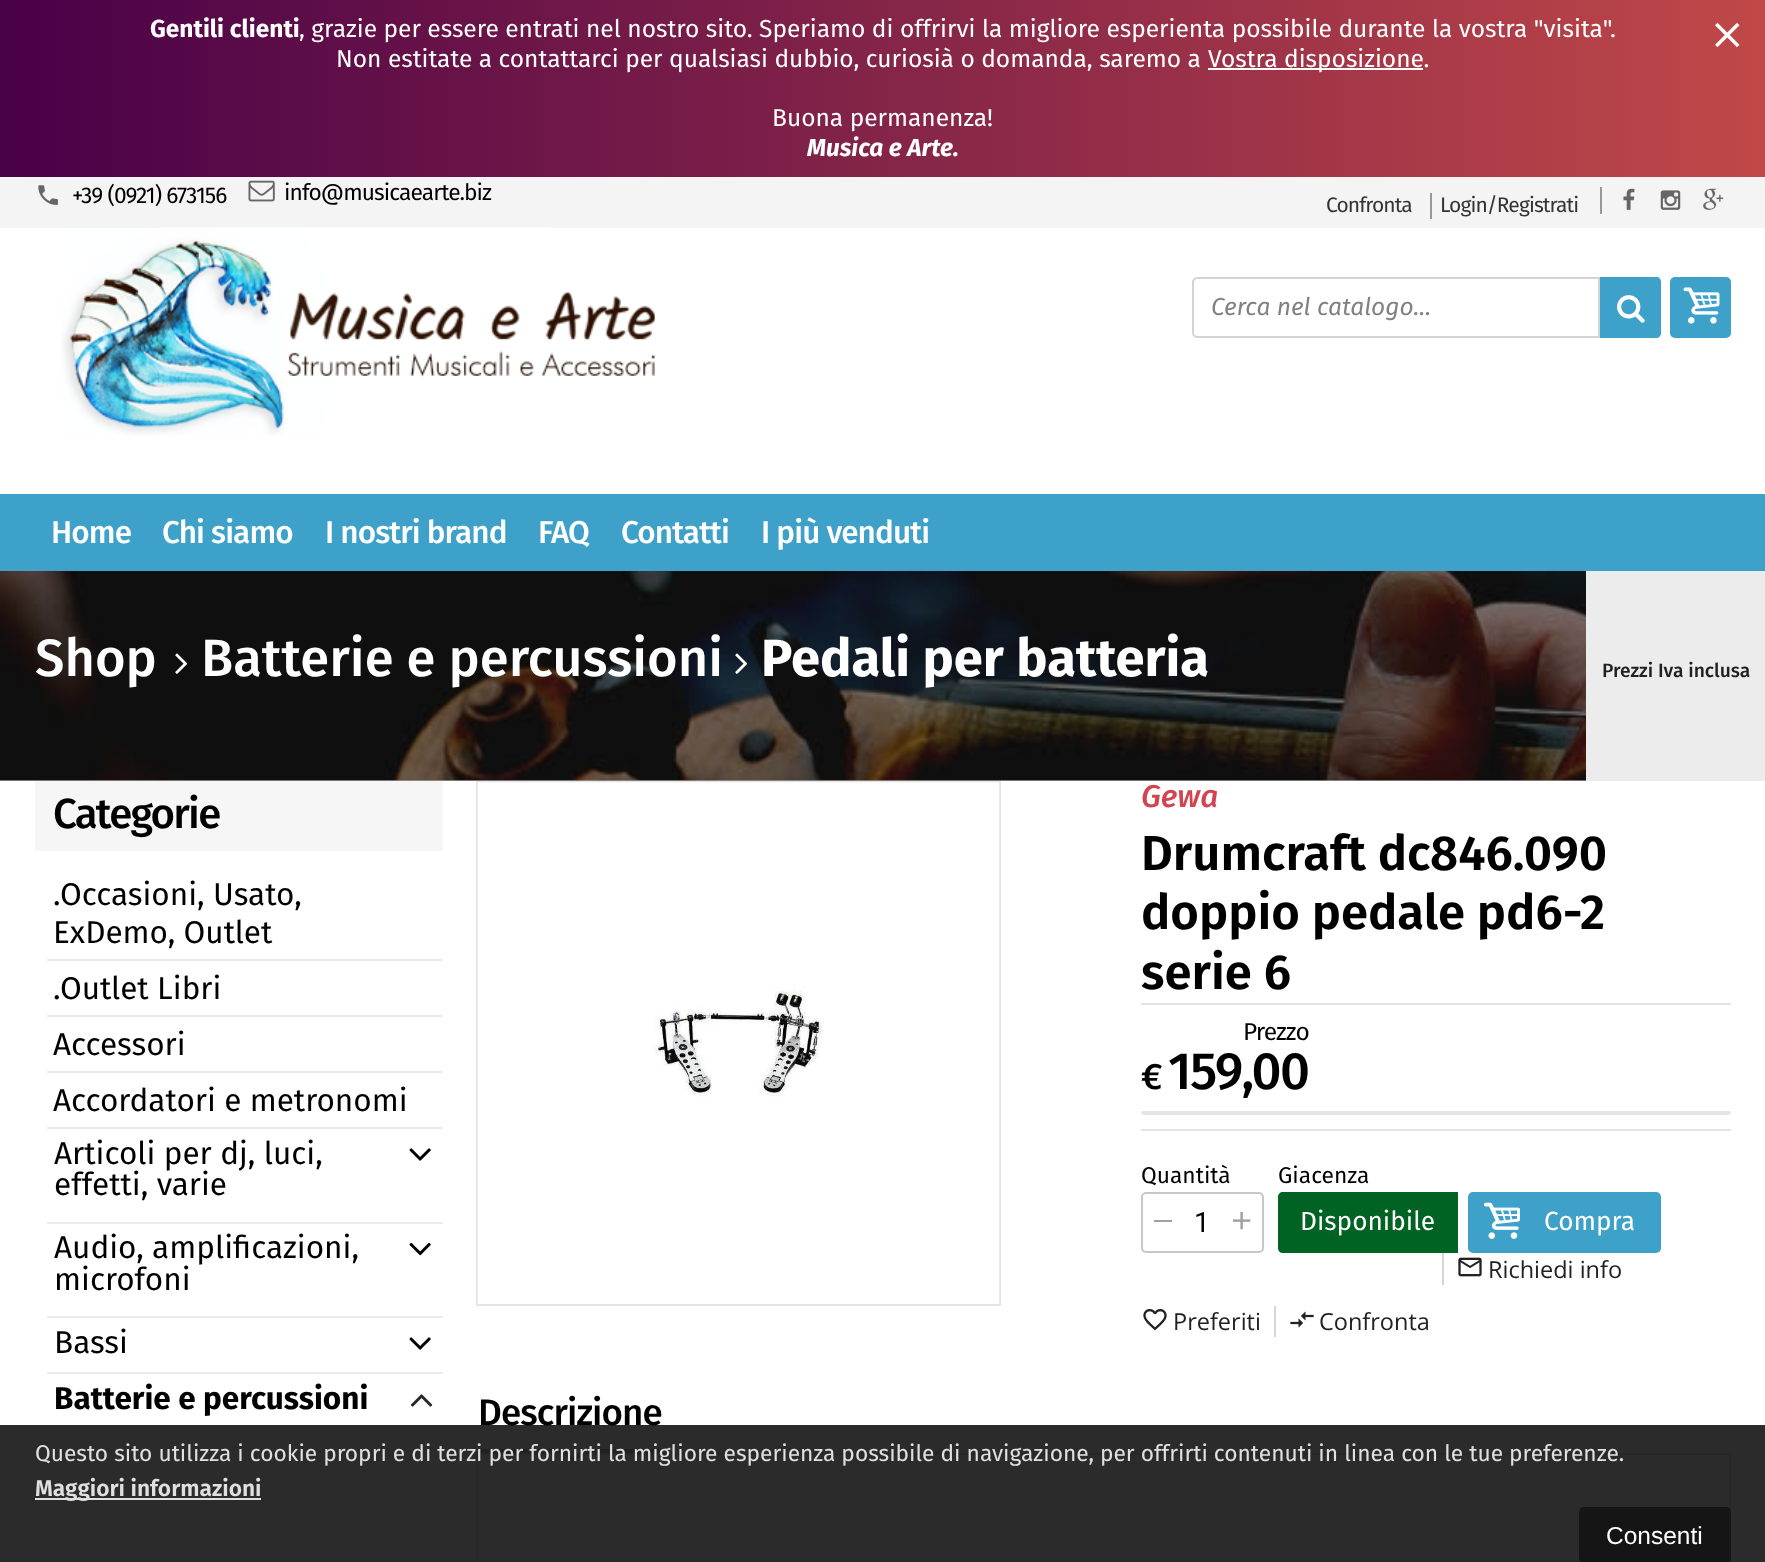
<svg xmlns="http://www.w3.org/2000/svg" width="1765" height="1562">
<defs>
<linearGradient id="g1" gradientUnits="userSpaceOnUse" x1="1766" y1="88" x2="0" y2="88"><stop offset="0" stop-color="#c04848"/><stop offset="1" stop-color="#480048"/></linearGradient>
</defs>
<rect width="100%" height="100%" fill="#fff"/>
<rect y="780" width="1586" height="1" fill="#999"/>
<rect width="1765" height="177" fill="url(#g1)"/>
<text x="150" y="37" style="font-family:Fira Sans;font-size:24.5px;font-weight:bold;fill:#fff">Gentili clienti</text>
<text x="299" y="37" style="font-family:Fira Sans;font-size:24.5px;fill:#fff">, grazie per essere entrati nel nostro sito. Speriamo di offrirvi la migliore esperienta possibile durante la vostra "visita".</text>
<text x="336" y="67" style="font-family:Fira Sans;font-size:24.5px;fill:#fff">Non estitate a contattarci per qualsiasi dubbio, curiosià o domanda, saremo a</text>
<rect x="1208" y="68" width="215" height="2" fill="#fff"/>
<text x="1208" y="67" style="font-family:Fira Sans;font-size:24.5px;fill:#fff">Vostra disposizione.</text>
<text x="772" y="126" style="font-family:Fira Sans;font-size:24.5px;fill:#fff">Buona permanenza!</text>
<text x="807" y="156" style="font-family:Fira Sans;font-size:24.5px;font-weight:bold;font-style:italic;fill:#fff">Musica e Arte.</text>
<image x="1715" y="22" width="25" height="26" href="media/1.png"/>
<rect y="177" width="1765" height="51" fill="#f4f4f4"/>
<image x="38" y="185" width="20" height="20" href="media/2.png"/>
<text x="72" y="203" style="font-family:Fira Sans;font-size:22.75px;letter-spacing:-0.9px;fill:#000">+39 (0921) 673156</text>
<image x="248" y="180" width="27" height="22" href="media/3.png"/>
<text x="284" y="200" style="font-family:Fira Sans;font-size:22.75px;letter-spacing:-0.9px;fill:#000">info@musicaearte.biz</text>
<text x="1326" y="212" style="font-family:Fira Sans;font-size:21px;letter-spacing:-0.9px;fill:#333">Confronta</text>
<rect x="1430" y="193" width="2" height="26" fill="#989898"/>
<text x="1440" y="212" style="font-family:Fira Sans;font-size:21px;letter-spacing:-0.9px;fill:#333">Login/Registrati</text>
<rect x="1600" y="187" width="2" height="27" fill="#989898"/>
<image x="1660" y="190" width="21" height="20" href="media/4.png"/>
<image x="1623" y="188" width="12" height="22" href="media/5.png"/>
<image x="1703" y="188" width="21" height="22" href="media/6.png"/>
<image x="61" y="227" width="594" height="209" href="media/7.png"/>
<path d="M1197 278h402v59h-402c-2 0-4-2-4-4v-51c0-2 2-4 4-4z" fill="none" stroke="#d5d4d4" stroke-width="2"/>
<text x="1211" y="315" style="font-family:Fira Sans;font-size:24.5px;font-style:italic;fill:#818181">Cerca nel catalogo...</text>
<path d="M1600 277h56c3 0 5 2 5 5v51c0 3-2 5-5 5h-56z" fill="#3ea1ca"/>
<image x="1617" y="295" width="28" height="28" href="media/8.png"/>
<rect x="1670" y="277" width="61" height="61" rx="5" fill="#3ea1ca"/>
<image x="1683" y="287" width="37" height="37" href="media/9.png"/>
<rect y="494" width="1765" height="77" fill="#3ea1ca"/>
<text x="51" y="543" style="font-family:Fira Sans;font-size:31.5px;font-weight:500;letter-spacing:-0.9px;fill:#fff">Home</text>
<text x="162" y="543" style="font-family:Fira Sans;font-size:31.5px;font-weight:500;letter-spacing:-0.9px;fill:#fff">Chi siamo</text>
<text x="325" y="543" style="font-family:Fira Sans;font-size:31.5px;font-weight:500;letter-spacing:-0.9px;fill:#fff">I nostri brand</text>
<text x="538" y="543" style="font-family:Fira Sans;font-size:31.5px;font-weight:500;letter-spacing:-0.9px;fill:#fff">FAQ</text>
<text x="621" y="543" style="font-family:Fira Sans;font-size:31.5px;font-weight:500;letter-spacing:-0.9px;fill:#fff">Contatti</text>
<text x="761" y="543" style="font-family:Fira Sans;font-size:31.5px;font-weight:500;letter-spacing:-0.9px;fill:#fff">I più venduti</text>
<rect x="1729" y="1453" width="2" height="109" fill="#e5e5e5"/>
<rect x="476" y="1453" width="2" height="109" fill="#e5e5e5"/>
<rect x="478" y="1449" width="184" height="4" fill="#c5c5c5"/>
<text x="478" y="1425" style="font-family:Fira Sans;font-size:36.75px;font-weight:500;letter-spacing:-0.9px;fill:#000">Descrizione</text>
<rect x="478" y="1453" width="1251" height="2" fill="#e5e5e5"/>
<path d="M573 1438.5l10 10l-8.5 8.5c-.5 .5-2 .5-2.5 0l-8.5-8.5z" fill="#fff"/>
<path d="M573 1438.5l12.5 12.5c-13.5 13.5-11 13.5-24.5 0zm0 0l10 10l-8.5 8.5c-.5 .5-2 .5-2.5 0l-8.5-8.5z" fill="#c5c5c5" fill-rule="evenodd"/>
<rect y="1425" width="1765" height="137" fill="#000000d4"/>
<text x="35" y="1461" style="font-family:Fira Sans;font-size:22.75px;fill:#e0e0e0">Questo sito utilizza i cookie propri e di terzi per fornirti la migliore esperienza possibile di navigazione, per offrirti contenuti in linea con le tue preferenze.</text>
<rect x="35" y="1498" width="226" height="2" fill="#e0e0e0"/>
<text x="35" y="1496" style="font-family:Fira Sans;font-size:22.75px;font-weight:600;fill:#e0e0e0">Maggiori informazioni</text>
<rect x="1579" y="1507" width="152" height="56" rx="5" fill="#151515"/>
<text x="1606" y="1544" style="font-family:Liberation Sans;font-size:24.5px;fill:#fff">Consenti</text>
<image x="0" y="571" width="1586" height="210" href="media/10.png"/>
<text x="35" y="676" style="font-family:Fira Sans;font-size:52.5px;font-weight:500;fill:#fff">Shop</text>
<image x="175" y="653" width="13" height="21" href="media/11.png"/>
<text x="201" y="676" style="font-family:Fira Sans;font-size:52.5px;font-weight:500;fill:#fff">Batterie e percussioni</text>
<image x="735" y="653" width="13" height="21" href="media/12.png"/>
<text x="761" y="676" style="font-family:Fira Sans;font-size:52.5px;font-weight:bold;fill:#fff">Pedali per batteria</text>
<rect x="1586" y="571" width="179" height="210" fill="#ececec"/>
<text x="1602" y="677" style="font-family:Fira Sans;font-size:19.25px;font-weight:500;fill:#212121">Prezzi Iva inclusa</text>
<rect x="35" y="781" width="408" height="70" fill="#f6f6f6"/>
<text x="53" y="828" style="font-family:Fira Sans;font-size:42px;font-weight:500;letter-spacing:-1.75px;fill:#000">Categorie</text>
<text x="53" y="905" style="font-family:Fira Sans;font-size:31.5px;fill:#000">.Occasioni, Usato,</text>
<text x="53" y="943" style="font-family:Fira Sans;font-size:31.5px;fill:#000">ExDemo, Outlet</text>
<rect x="47" y="959" width="396" height="2" fill="#ececec"/>
<text x="53" y="999" style="font-family:Fira Sans;font-size:31.5px;fill:#000">.Outlet Libri</text>
<rect x="47" y="1015" width="396" height="2" fill="#ececec"/>
<text x="53" y="1055" style="font-family:Fira Sans;font-size:31.5px;fill:#000">Accessori</text>
<rect x="47" y="1071" width="396" height="2" fill="#ececec"/>
<text x="53" y="1111" style="font-family:Fira Sans;font-size:31.5px;fill:#000">Accordatori e metronomi</text>
<rect x="47" y="1127" width="396" height="2" fill="#ececec"/>
<text x="54" y="1164" style="font-family:Fira Sans;font-size:31.5px;fill:#000">Articoli per dj, luci,</text>
<text x="54" y="1195" style="font-family:Fira Sans;font-size:31.5px;fill:#000">effetti, varie</text>
<image x="409" y="1148" width="22" height="13" href="media/13.png"/>
<rect x="47" y="1222" width="396" height="2" fill="#ececec"/>
<text x="54" y="1258" style="font-family:Fira Sans;font-size:31.5px;fill:#000">Audio, amplificazioni,</text>
<text x="54" y="1290" style="font-family:Fira Sans;font-size:31.5px;fill:#000">microfoni</text>
<image x="409" y="1242" width="22" height="14" href="media/14.png"/>
<rect x="47" y="1316" width="396" height="2" fill="#ececec"/>
<text x="54" y="1353" style="font-family:Fira Sans;font-size:31.5px;fill:#000">Bassi</text>
<image x="409" y="1337" width="22" height="13" href="media/13.png"/>
<rect x="47" y="1372" width="396" height="2" fill="#ececec"/>
<text x="54" y="1409" style="font-family:Fira Sans;font-size:31.5px;font-weight:bold;fill:#000">Batterie e percussioni</text>
<image x="410" y="1394" width="23" height="13" href="media/15.png"/>
<rect x="477" y="782" width="523" height="523" fill="none" stroke="#e5e5e5" stroke-width="2"/>
<image x="477" y="782" width="523" height="522" href="media/16.png"/>
<text x="1141" y="807" style="font-family:Fira Sans;font-size:31.5px;font-weight:500;font-style:italic;fill:#d24450">Gewa</text>
<text x="1141" y="870" style="font-family:Fira Sans;font-size:49px;font-weight:600;fill:#000">Drumcraft dc846.090</text>
<text x="1141" y="929" style="font-family:Fira Sans;font-size:49px;font-weight:600;fill:#000">doppio pedale pd6-2</text>
<text x="1141" y="989" style="font-family:Fira Sans;font-size:49px;font-weight:600;fill:#000">serie 6</text>
<rect x="1141" y="1003" width="590" height="2" fill="#e5e5e5"/>
<rect x="1141" y="1129" width="590" height="2" fill="#e5e5e5"/>
<text x="1243" y="1040" style="font-family:Fira Sans;font-size:24.5px;letter-spacing:-0.9px;fill:#000">Prezzo</text>
<text x="1141" y="1089" style="font-family:Fira Sans;font-size:36.75px;font-weight:500;letter-spacing:-1.75px;fill:#000">€</text>
<text x="1168" y="1089" style="font-family:Fira Sans;font-size:52.5px;font-weight:500;letter-spacing:-1.75px;fill:#000">159,00</text>
<rect x="1141" y="1111" width="590" height="4" rx="2" fill="#e5e5e5"/>
<text x="1141" y="1183" style="font-family:Fira Sans;font-size:22.75px;fill:#000">Quantità</text>
<rect x="1142" y="1193" width="121" height="59" rx="4" fill="none" stroke="#c7c7c7" stroke-width="2"/>
<rect x="1154" y="1220" width="18" height="2" fill="#a0a0a0"/>
<text x="1194" y="1232" style="font-family:Roboto;font-size:28px;fill:#000">1</text>
<image x="1233" y="1212" width="18" height="18" href="media/17.png"/>
<text x="1278" y="1183" style="font-family:Fira Sans;font-size:22.75px;fill:#000">Giacenza</text>
<path d="M1283 1192h175v61h-175c-3 0-5-2-5-5v-51c0-3 2-5 5-5z" fill="#006223"/>
<text x="1300" y="1230" style="font-family:Fira Sans;font-size:26.25px;fill:#fff">Disponibile</text>
<rect x="1468" y="1192" width="193" height="61" rx="5" fill="#3ea1ca"/>
<image x="1484" y="1202" width="36" height="37" href="media/18.png"/>
<text x="1544" y="1230" style="font-family:Fira Sans;font-size:26.25px;fill:#fff">Compra</text>
<rect x="1442" y="1253" width="2" height="32" fill="#d5d5d5"/>
<image x="1458" y="1257" width="24" height="20" href="media/19.png"/>
<text x="1488" y="1278" style="font-family:Open Sans;font-size:23.5px;fill:#212121">Richiedi info</text>
<image x="1143" y="1309" width="24" height="22" href="media/20.png"/>
<text x="1173" y="1330" style="font-family:Open Sans;font-size:23.5px;fill:#212121">Preferiti</text>
<rect x="1274" y="1306" width="2" height="31" fill="#d5d5d5"/>
<image x="1290" y="1311" width="24" height="17" href="media/21.png"/>
<text x="1319" y="1330" style="font-family:Open Sans;font-size:23.5px;fill:#212121">Confronta</text>
</svg>
